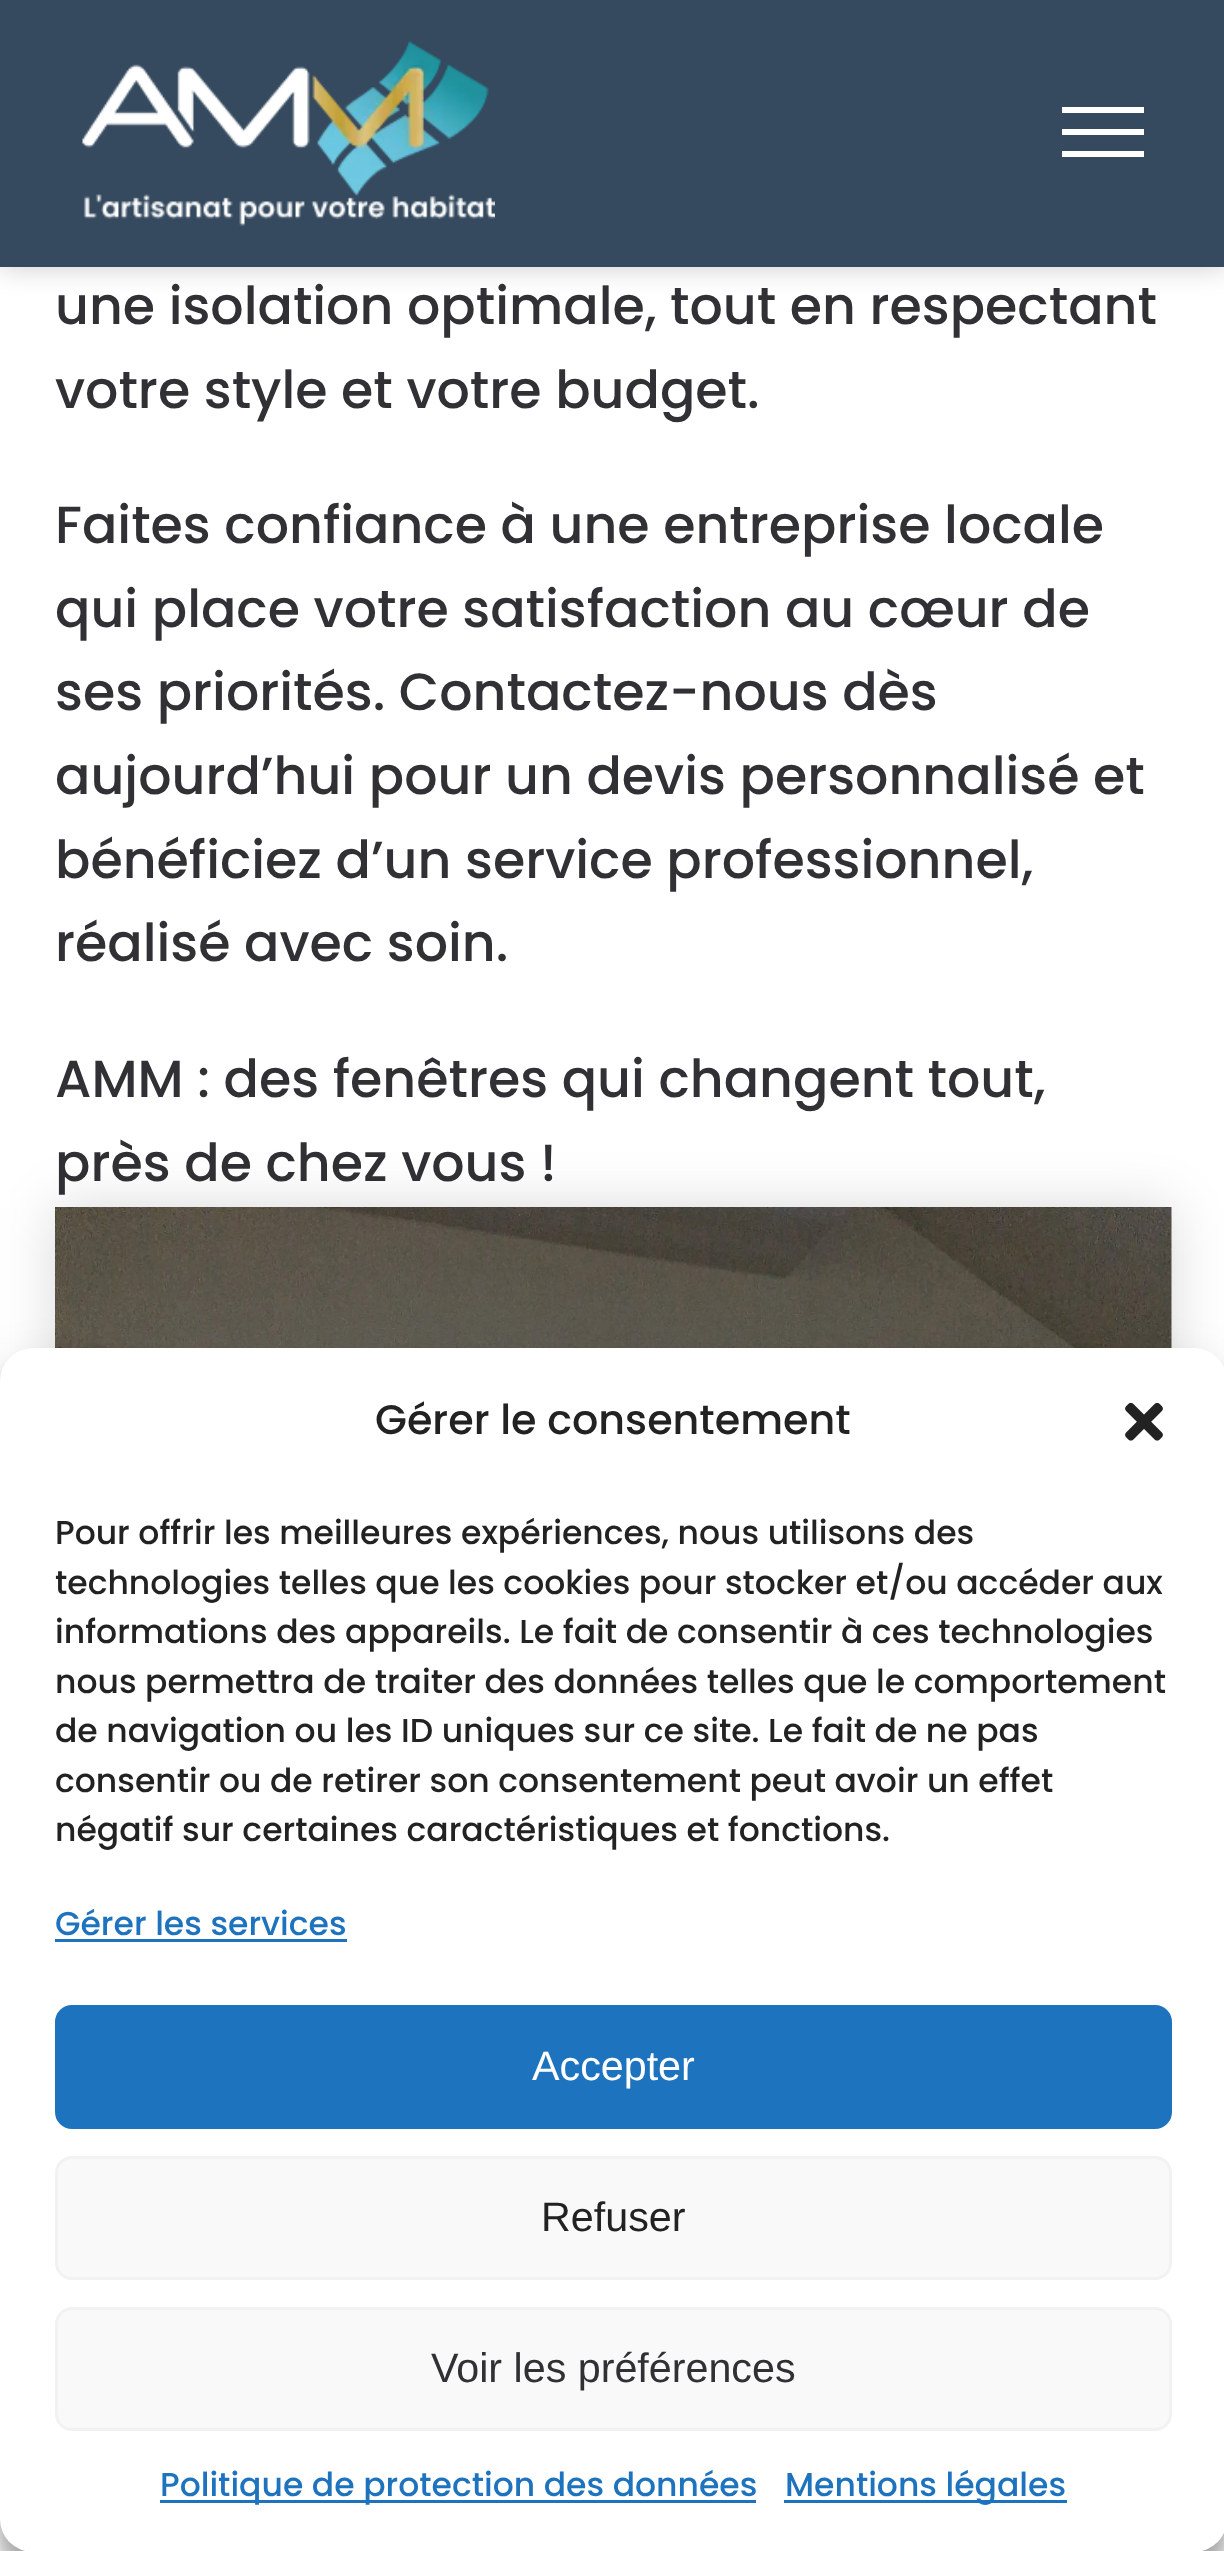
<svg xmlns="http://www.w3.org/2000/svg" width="1224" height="2551">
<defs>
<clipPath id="clip1"><path d="M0 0h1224v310h-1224zm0 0h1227v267h-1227z" clip-rule="evenodd"/></clipPath>
</defs>
<rect width="100%" height="100%" fill="#fff"/>
<g clip-path="url(#clip1)">
<rect width="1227" height="267" fill="#00000033" filter="blur(14px)"/>
</g>
<rect width="1224" height="267" fill="#1f364ee6"/>
<image x="82" y="41" width="413" height="185" href="media/1.png"/>
<rect x="1062" y="107" width="82" height="6" fill="#fff"/>
<rect x="1062" y="151" width="82" height="6" fill="#fff"/>
<rect x="1062" y="129" width="82" height="6" fill="#fff"/>
<text x="55" y="324" style="font-family:Poppins;font-size:52.25px;font-weight:500;fill:#313035">une isolation optimale, tout en respectant</text>
<text x="55" y="408" style="font-family:Poppins;font-size:52.25px;font-weight:500;fill:#313035">votre style et votre budget.</text>
<text x="55" y="543" style="font-family:Poppins;font-size:52.25px;font-weight:500;fill:#313035">Faites confiance à une entreprise locale</text>
<text x="55" y="627" style="font-family:Poppins;font-size:52.25px;font-weight:500;fill:#313035">qui place votre satisfaction au cœur de</text>
<text x="55" y="710" style="font-family:Poppins;font-size:52.25px;font-weight:500;fill:#313035">ses priorités. Contactez-nous dès</text>
<text x="55" y="794" style="font-family:Poppins;font-size:52.25px;font-weight:500;fill:#313035">aujourd’hui pour un devis personnalisé et</text>
<text x="55" y="878" style="font-family:Poppins;font-size:52.25px;font-weight:500;fill:#313035">bénéficiez d’un service professionnel,</text>
<text x="55" y="961" style="font-family:Poppins;font-size:52.25px;font-weight:500;fill:#313035">réalisé avec soin.</text>
<text x="55" y="1097" style="font-family:Poppins;font-size:52.25px;font-weight:500;fill:#313035">AMM : des fenêtres qui changent tout,</text>
<text x="55" y="1181" style="font-family:Poppins;font-size:52.25px;font-weight:500;fill:#313035">près de chez vous !</text>
<rect x="55" y="1207" width="1117" height="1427" fill="#00000026" filter="blur(27.5px)"/>
<image x="55" y="1207" width="1117" height="141" href="media/2.png"/>
<rect y="1364" width="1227" height="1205" rx="33" fill="#0000003b" filter="blur(8px)"/>
<rect y="1375" width="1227" height="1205" rx="33" fill="#00000030" filter="blur(27.5px)"/>
<rect y="1348" width="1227" height="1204" rx="33" fill="#fff"/>
<text x="375" y="1434" style="font-family:Poppins;font-size:41.25px;font-weight:500;fill:#222">Gérer le consentement</text>
<image x="1125" y="1402" width="38" height="39" href="media/3.png"/>
<text x="55" y="1544" style="font-family:Poppins;font-size:33px;font-weight:500;fill:#222">Pour offrir les meilleures expériences, nous utilisons des</text>
<text x="55" y="1594" style="font-family:Poppins;font-size:33px;font-weight:500;fill:#222">technologies telles que les cookies pour stocker et/ou accéder aux</text>
<text x="55" y="1643" style="font-family:Poppins;font-size:33px;font-weight:500;fill:#222">informations des appareils. Le fait de consentir à ces technologies</text>
<text x="55" y="1693" style="font-family:Poppins;font-size:33px;font-weight:500;fill:#222">nous permettra de traiter des données telles que le comportement</text>
<text x="55" y="1742" style="font-family:Poppins;font-size:33px;font-weight:500;fill:#222">de navigation ou les ID uniques sur ce site. Le fait de ne pas</text>
<text x="55" y="1792" style="font-family:Poppins;font-size:33px;font-weight:500;fill:#222">consentir ou de retirer son consentement peut avoir un effet</text>
<text x="55" y="1841" style="font-family:Poppins;font-size:33px;font-weight:500;fill:#222">négatif sur certaines caractéristiques et fonctions.</text>
<text x="55" y="1935" style="font-family:Poppins;font-size:33px;font-weight:500;fill:#1e73be">Gérer les services</text>
<rect x="55" y="1939" width="292" height="3" fill="#1e73be"/>
<rect x="56.5" y="2006.5" width="1114" height="121" rx="15.5" fill="#1e73be" stroke="#1e73be" stroke-width="3"/>
<text x="532" y="2080" style="font-family:Liberation Sans;font-size:41.25px;fill:#fff">Accepter</text>
<rect x="56.5" y="2157.5" width="1114" height="121" rx="15.5" fill="#f9f9f9" stroke="#f2f2f2" stroke-width="3"/>
<text x="541" y="2231" style="font-family:Liberation Sans;font-size:41.25px;fill:#222">Refuser</text>
<rect x="56.5" y="2308.5" width="1114" height="121" rx="15.5" fill="#f9f9f9" stroke="#f2f2f2" stroke-width="3"/>
<text x="431" y="2382" style="font-family:Liberation Sans;font-size:41.25px;fill:#313035">Voir les préférences</text>
<rect x="160" y="2500" width="596" height="3" fill="#1e73be"/>
<text x="160" y="2496" style="font-family:Poppins;font-size:33px;font-weight:500;fill:#1e73be">Politique de protection des données</text>
<rect x="784" y="2500" width="283" height="3" fill="#1e73be"/>
<text x="785" y="2496" style="font-family:Poppins;font-size:33px;font-weight:500;fill:#1e73be">Mentions légales</text>
</svg>
